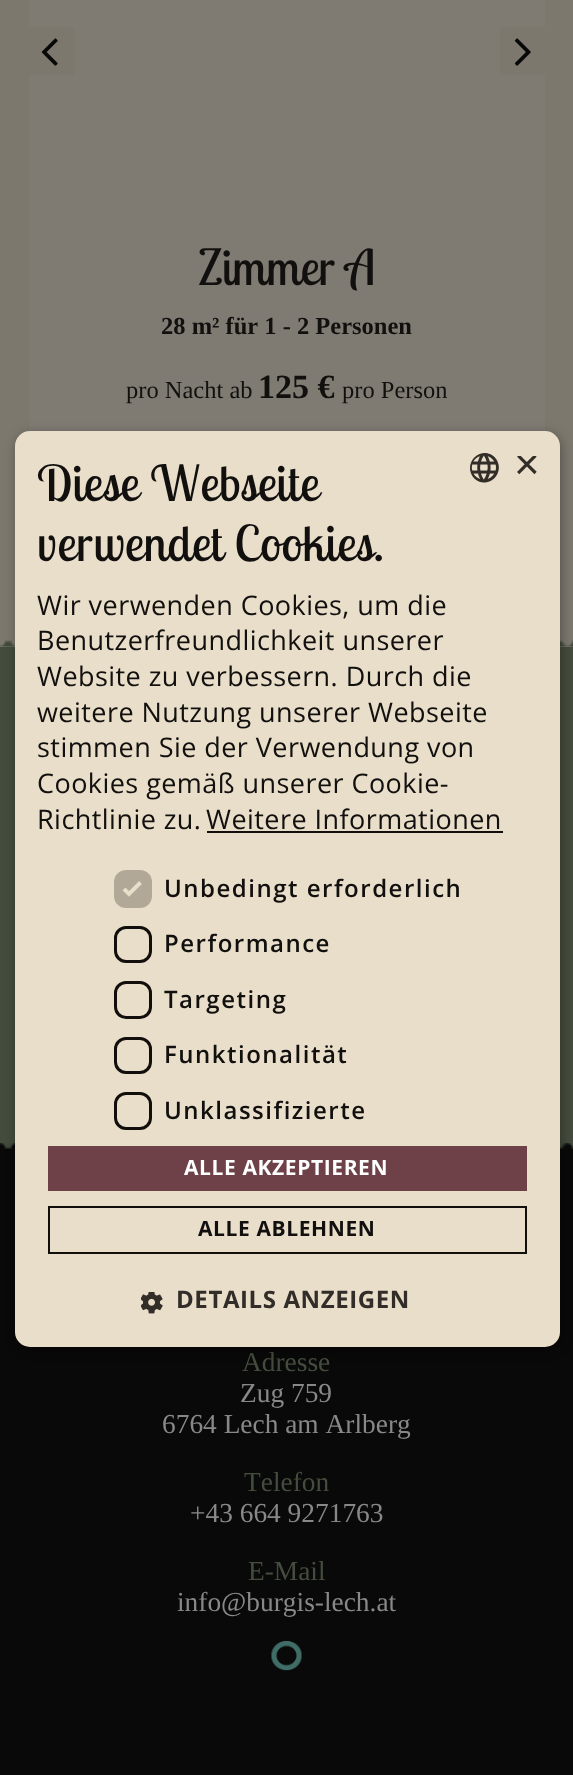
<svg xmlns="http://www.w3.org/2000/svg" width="573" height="1775">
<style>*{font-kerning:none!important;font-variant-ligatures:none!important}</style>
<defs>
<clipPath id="clip1"><rect x="515" y="456" width="22" height="23"/></clipPath>
</defs>
<rect width="100%" height="100%" fill="#7d786e"/>
<rect x="29" width="516" height="432" fill="#7f7b73"/>
<rect x="29" y="27" width="45" height="48" fill="#7d786e"/>
<image x="41" y="38" width="17" height="28" href="media/1.png"/>
<rect x="500" y="27" width="45" height="48" fill="#7d786e"/>
<image x="514" y="38" width="17" height="28" href="media/2.png"/>
<text x="198" y="285" style="font-family:Lobster Two;font-size:49px;fill:#12100e">Zimmer A</text>
<text x="161" y="334" style="font-family:Liberation Serif;font-size:24.5px;font-weight:bold;fill:#12100e">28 m² für 1 - 2 Personen</text>
<text x="126" y="398" style="font-family:Liberation Serif;font-size:24.5px;fill:#12100e">pro Nacht ab</text>
<text x="258" y="398" style="font-family:Liberation Serif;font-size:34px;font-weight:bold;fill:#12100e">125 €</text>
<text x="342" y="398" style="font-family:Liberation Serif;font-size:24.5px;fill:#12100e">pro Person</text>
<rect y="647" width="573" height="496" fill="#444c3d"/>
<image x="0" y="640" width="573" height="7" href="media/3.png"/>
<rect y="1143" width="573" height="632" fill="#090909"/>
<image x="0" y="1143" width="573" height="6" href="media/4.png"/>
<text x="242" y="1371" style="font-family:Liberation Serif;font-size:27.4px;fill:#444c3d">Adresse</text>
<text x="240" y="1402" style="font-family:Liberation Serif;font-size:27.4px;fill:#888">Zug 759</text>
<text x="162" y="1433" style="font-family:Liberation Serif;font-size:27.4px;fill:#888">6764 Lech am Arlberg</text>
<text x="244" y="1491" style="font-family:Liberation Serif;font-size:27.4px;fill:#444c3d">Telefon</text>
<text x="190" y="1522" style="font-family:Liberation Serif;font-size:27.4px;fill:#888">+43 664 9271763</text>
<text x="248" y="1580" style="font-family:Liberation Serif;font-size:27.4px;fill:#444c3d">E-Mail</text>
<text x="177" y="1611" style="font-family:Liberation Serif;font-size:27.4px;fill:#888">info@burgis-lech.at</text>
<image x="271" y="1641" width="31" height="30" href="media/5.png"/>
<rect x="17" y="434" width="544" height="916" rx="15" fill="#00000059" filter="blur(6px)"/>
<rect x="15" y="431" width="545" height="916" rx="15" fill="#e9deca"/>
<text x="37" y="501" style="font-family:Lobster Two;font-size:49.5px;letter-spacing:0.6px;fill:#12100e">Diese Webseite</text>
<text x="37" y="561" style="font-family:Lobster Two;font-size:49.5px;letter-spacing:0.6px;fill:#12100e">verwendet Cookies.</text>
<image x="470" y="453" width="29" height="30" href="media/6.png"/>
<g clip-path="url(#clip1)">
<text x="514" y="479" style="font-family:Liberation Sans;font-size:44px;fill:#322d28">×</text>
</g>
<text x="37" y="615" style="font-family:Open Sans;font-size:27px;letter-spacing:0.45px;fill:#12100e">Wir verwenden Cookies, um die</text>
<text x="37" y="650" style="font-family:Open Sans;font-size:27px;letter-spacing:0.45px;fill:#12100e">Benutzerfreundlichkeit unserer</text>
<text x="37" y="686" style="font-family:Open Sans;font-size:27px;letter-spacing:0.45px;fill:#12100e">Website zu verbessern. Durch die</text>
<text x="37" y="722" style="font-family:Open Sans;font-size:27px;letter-spacing:0.45px;fill:#12100e">weitere Nutzung unserer Webseite</text>
<text x="37" y="757" style="font-family:Open Sans;font-size:27px;letter-spacing:0.45px;fill:#12100e">stimmen Sie der Verwendung von</text>
<text x="37" y="793" style="font-family:Open Sans;font-size:27px;letter-spacing:0.45px;fill:#12100e">Cookies gemäß unserer Cookie-</text>
<text x="37" y="829" style="font-family:Open Sans;font-size:27px;letter-spacing:0.45px;fill:#12100e">Richtlinie zu.</text>
<text x="206" y="829" style="font-family:Open Sans;font-size:27px;letter-spacing:0.45px;fill:#12100e">Weitere Informationen</text>
<rect x="207" y="831" width="296" height="2" fill="#120e0b"/>
<rect x="114" y="870" width="38" height="38" rx="12" fill="#b1a898"/>
<path d="M124 889l5 5l11.5-11.5" fill="none" stroke="#e9deca" stroke-width="3.9"/>
<text x="164" y="897" style="font-family:Open Sans;font-size:24px;font-weight:600;letter-spacing:1.5px;fill:#12100e">Unbedingt erforderlich</text>
<rect x="115.5" y="927.5" width="35" height="34" rx="10.5" fill="none" stroke="#120e0b" stroke-width="3"/>
<text x="164" y="952" style="font-family:Open Sans;font-size:24px;font-weight:600;letter-spacing:1.5px;fill:#12100e">Performance</text>
<rect x="115.5" y="982.5" width="35" height="35" rx="10.5" fill="none" stroke="#120e0b" stroke-width="3"/>
<text x="164" y="1008" style="font-family:Open Sans;font-size:24px;font-weight:600;letter-spacing:1.5px;fill:#12100e">Targeting</text>
<rect x="115.5" y="1038.5" width="35" height="34" rx="10.5" fill="none" stroke="#120e0b" stroke-width="3"/>
<text x="164" y="1063" style="font-family:Open Sans;font-size:24px;font-weight:600;letter-spacing:1.5px;fill:#12100e">Funktionalität</text>
<rect x="115.5" y="1093.5" width="35" height="35" rx="10.5" fill="none" stroke="#120e0b" stroke-width="3"/>
<text x="164" y="1119" style="font-family:Open Sans;font-size:24px;font-weight:600;letter-spacing:1.5px;fill:#12100e">Unklassifizierte</text>
<rect x="48" y="1146" width="479" height="45" fill="#6d4147"/>
<text x="184" y="1175" style="font-family:Open Sans;font-size:21px;font-weight:bold;letter-spacing:0.6px;fill:#fff">ALLE AKZEPTIEREN</text>
<rect x="49" y="1207" width="477" height="46" fill="none" stroke="#120e0b" stroke-width="2"/>
<text x="198" y="1236" style="font-family:Open Sans;font-size:21px;font-weight:bold;letter-spacing:0.6px;fill:#12100e">ALLE ABLEHNEN</text>
<image x="141" y="1292" width="22" height="22" href="media/7.png"/>
<text x="176" y="1308" style="font-family:Open Sans;font-size:24px;font-weight:bold;letter-spacing:0.6px;fill:#322d28">DETAILS ANZEIGEN</text>
</svg>
